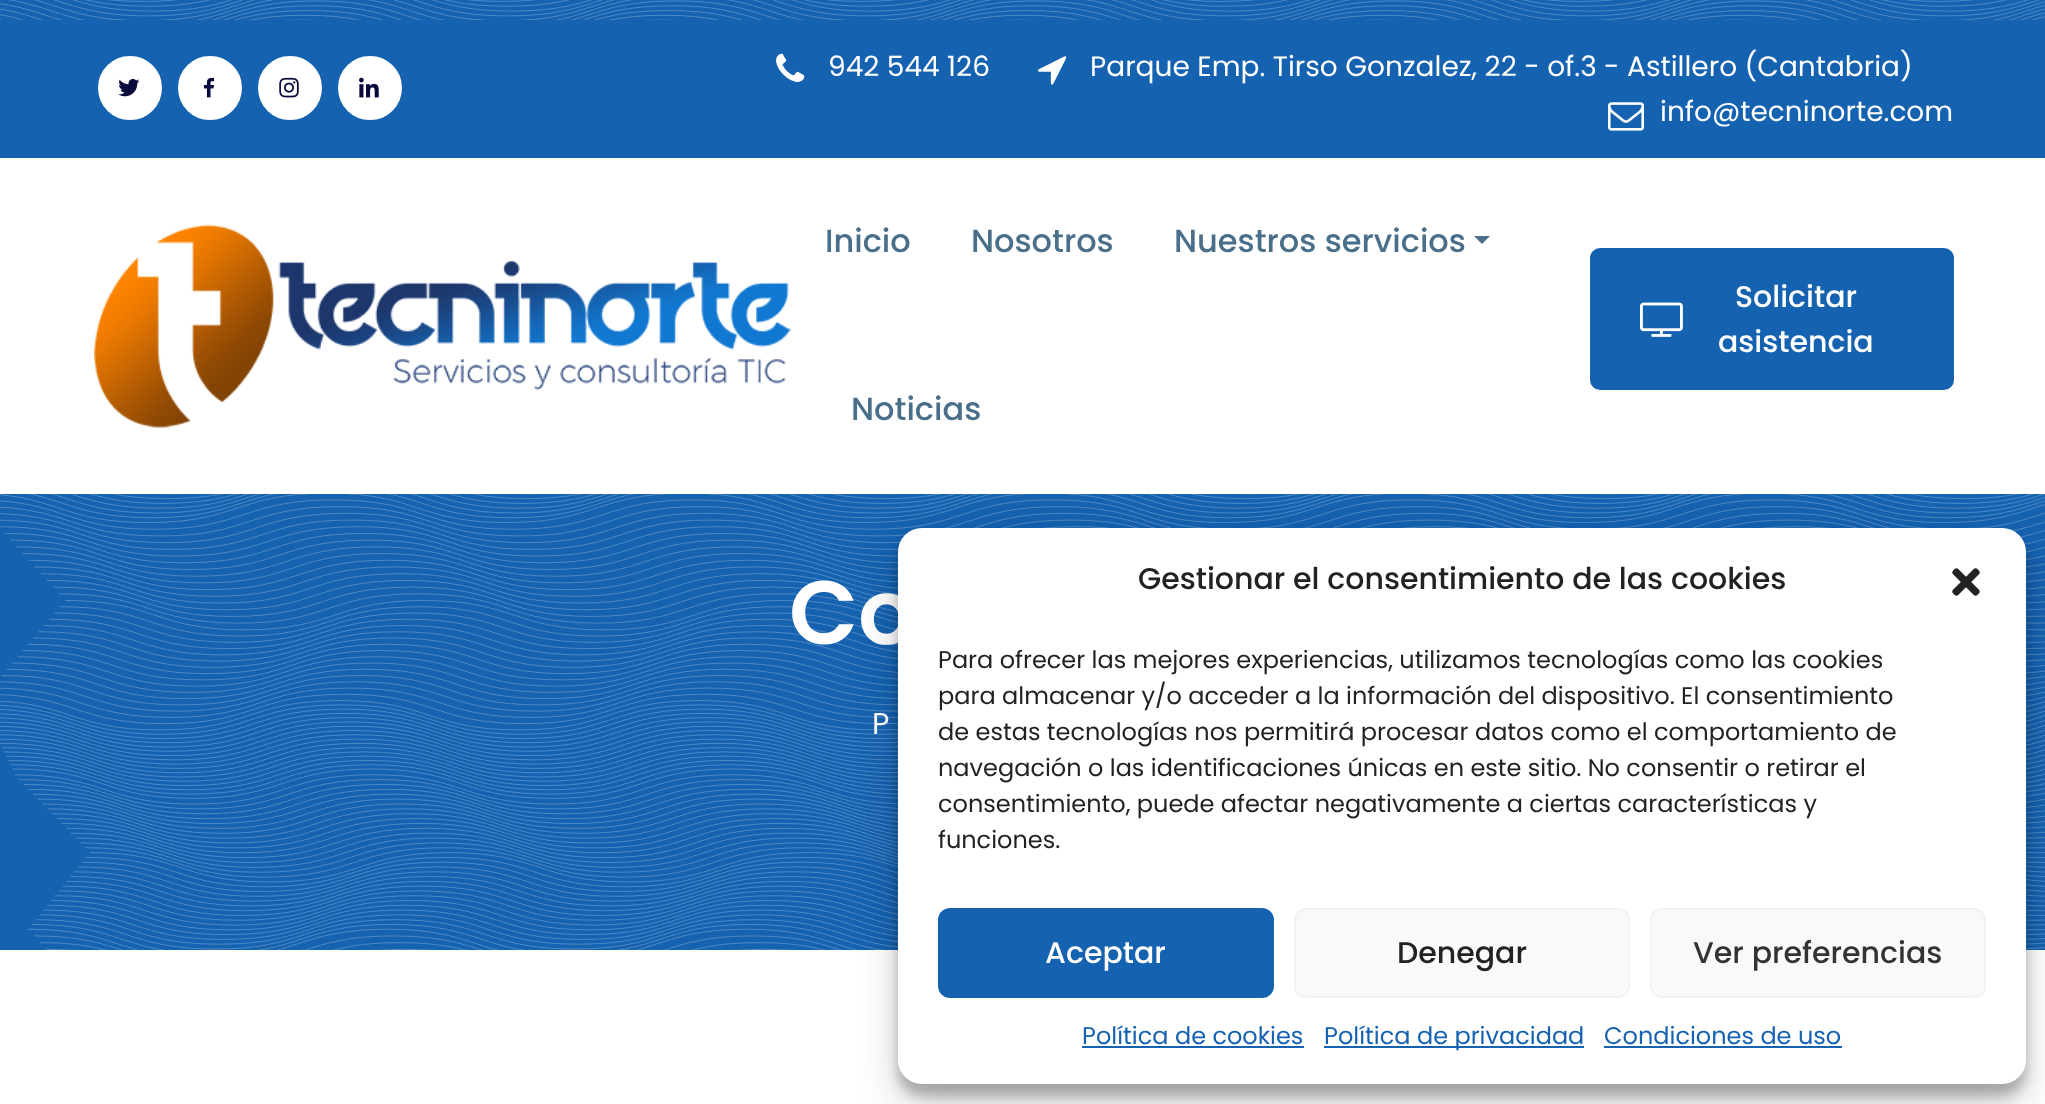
<svg xmlns="http://www.w3.org/2000/svg" width="2045" height="1104">
<rect width="100%" height="100%" fill="#fff"/>
<rect width="2045" height="950" fill="#1562b0"/>
<image x="0" y="0" width="2045" height="950" href="media/10.png"/>
<rect y="20" width="2045" height="138" fill="#1562b0"/>
<circle cx="130" cy="88" r="31" fill="#fff" stroke="#fff" stroke-width="2"/>
<image x="118" y="79" width="22" height="18" href="media/1.png"/>
<circle cx="210" cy="88" r="31" fill="#fff" stroke="#fff" stroke-width="2"/>
<image x="203" y="77" width="12" height="21" href="media/2.png"/>
<circle cx="290" cy="88" r="31" fill="#fff" stroke="#fff" stroke-width="2"/>
<image x="279" y="77" width="20" height="21" href="media/3.png"/>
<circle cx="370" cy="88" r="31" fill="#fff" stroke="#fff" stroke-width="2"/>
<image x="359" y="77" width="20" height="21" href="media/4.png"/>
<image x="776" y="53" width="29" height="29" href="media/5.png"/>
<text x="828" y="76" style="font-family:Poppins;font-size:28px;fill:#fff">942 544 126</text>
<image x="1038" y="56" width="29" height="29" href="media/6.png"/>
<text x="1090" y="76" style="font-family:Poppins;font-size:28px;fill:#fff">Parque Emp. Tirso Gonzalez, 22 - of.3 - Astillero (Cantabria)</text>
<image x="1608" y="102" width="36" height="29" href="media/7.png"/>
<text x="1660" y="121" style="font-family:Poppins;font-size:28px;fill:#fff">info@tecninorte.com</text>
<rect y="158" width="2045" height="336" fill="#fff"/>
<image x="94" y="224" width="698" height="204" href="media/8.png"/>
<text x="825" y="252" style="font-family:Poppins;font-size:32px;font-weight:500;fill:#4a6f8a">Inicio</text>
<text x="971" y="252" style="font-family:Poppins;font-size:32px;font-weight:500;fill:#4a6f8a">Nosotros</text>
<text x="1174" y="252" style="font-family:Poppins;font-size:32px;font-weight:500;fill:#4a6f8a">Nuestros servicios</text>
<path d="M1474 236h16l-8 8z" fill="#4a6f8a"/>
<text x="851" y="420" style="font-family:Poppins;font-size:32px;font-weight:500;fill:#4a6f8a">Noticias</text>
<rect x="1590" y="248" width="364" height="142" rx="10" fill="#1562b0"/>
<text x="1735" y="307" style="font-family:Poppins;font-size:30px;font-weight:500;fill:#fff">Solicitar</text>
<image x="1640" y="302" width="43" height="35" href="media/9.png"/>
<text x="1718" y="352" style="font-family:Poppins;font-size:30px;font-weight:500;fill:#fff">asistencia</text>
<text x="789" y="644" style="font-family:Poppins;font-size:90px;font-weight:600;fill:#fff">Co</text>
<text x="872" y="734" style="font-family:Poppins;font-size:30px;fill:#fff">P</text>
<rect x="898" y="540" width="1128" height="556" rx="24" fill="#0000003b" filter="blur(6px)"/>
<rect x="898" y="548" width="1128" height="556" rx="24" fill="#00000030" filter="blur(20px)"/>
<rect x="898" y="528" width="1128" height="556" rx="24" fill="#fff"/>
<text x="1138" y="589" style="font-family:Poppins;font-size:30px;font-weight:500;fill:#222">Gestionar el consentimiento de las cookies</text>
<image x="1952" y="568" width="28" height="28" href="media/11.png"/>
<text x="938" y="668" style="font-family:Poppins;font-size:24px;fill:#222">Para ofrecer las mejores experiencias, utilizamos tecnologías como las cookies</text>
<text x="938" y="704" style="font-family:Poppins;font-size:24px;fill:#222">para almacenar y/o acceder a la información del dispositivo. El consentimiento</text>
<text x="938" y="740" style="font-family:Poppins;font-size:24px;fill:#222">de estas tecnologías nos permitirá procesar datos como el comportamiento de</text>
<text x="938" y="776" style="font-family:Poppins;font-size:24px;fill:#222">navegación o las identificaciones únicas en este sitio. No consentir o retirar el</text>
<text x="938" y="812" style="font-family:Poppins;font-size:24px;fill:#222">consentimiento, puede afectar negativamente a ciertas características y</text>
<text x="938" y="848" style="font-family:Poppins;font-size:24px;fill:#222">funciones.</text>
<rect x="939" y="909" width="334" height="88" rx="11" fill="#1562b0" stroke="#1562b0" stroke-width="2"/>
<text x="1045" y="963" style="font-family:Poppins;font-size:30px;font-weight:500;fill:#fff">Aceptar</text>
<rect x="1295" y="909" width="334" height="88" rx="11" fill="#f9f9f9" stroke="#f2f2f2" stroke-width="2"/>
<text x="1397" y="963" style="font-family:Poppins;font-size:30px;font-weight:500;fill:#222">Denegar</text>
<rect x="1651" y="909" width="334" height="88" rx="11" fill="#f9f9f9" stroke="#f2f2f2" stroke-width="2"/>
<text x="1693" y="963" style="font-family:Poppins;font-size:30px;font-weight:500;fill:#333">Ver preferencias</text>
<text x="1082" y="1044" style="font-family:Poppins;font-size:24px;fill:#1562b0">Política de cookies</text>
<rect x="1082" y="1046" width="222" height="2" fill="#1562b0"/>
<rect x="1324" y="1046" width="260" height="2" fill="#1562b0"/>
<text x="1324" y="1044" style="font-family:Poppins;font-size:24px;fill:#1562b0">Política de privacidad</text>
<text x="1604" y="1044" style="font-family:Poppins;font-size:24px;fill:#1562b0">Condiciones de uso</text>
<rect x="1604" y="1046" width="238" height="2" fill="#1562b0"/>
</svg>
